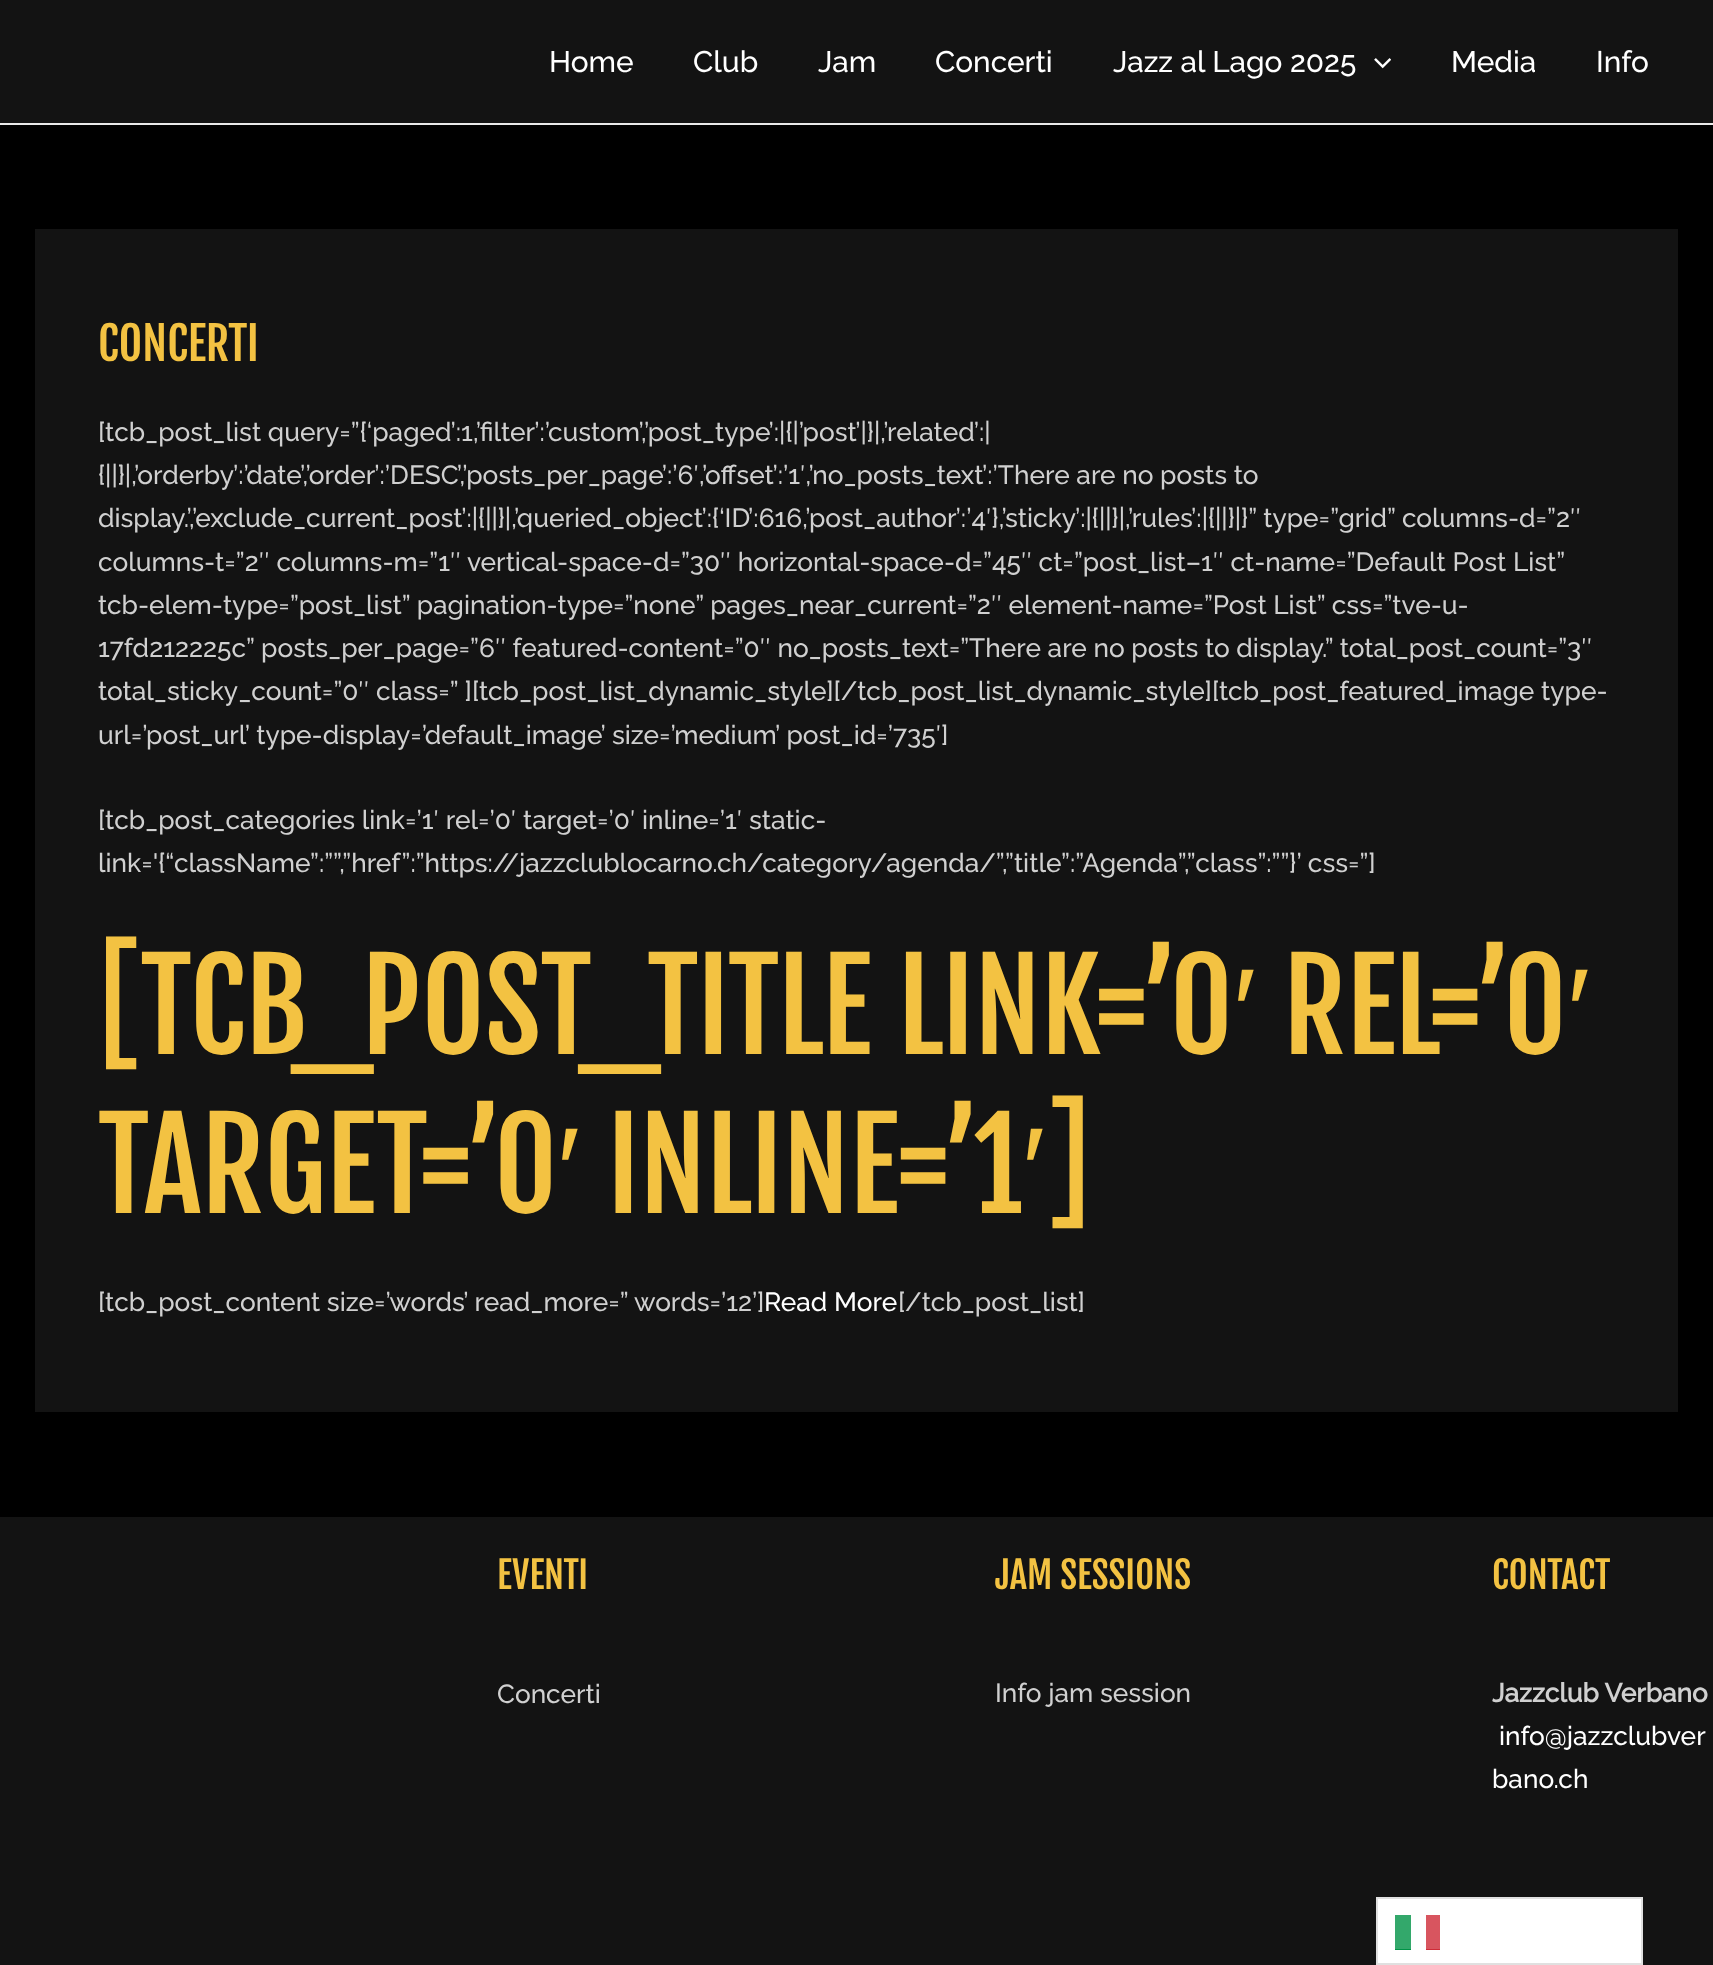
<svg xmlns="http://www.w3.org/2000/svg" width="1713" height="1965">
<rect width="100%" height="100%" fill="#000"/>
<rect width="1713" height="123" fill="#131313"/>
<rect y="123" width="1713" height="2" fill="#eaeaea"/>
<text x="549" y="72" style="font-family:Raleway;font-size:29.75px;font-weight:100;fill:#fff">Home</text>
<text x="693" y="72" style="font-family:Raleway;font-size:29.75px;font-weight:100;fill:#fff">Club</text>
<text x="818" y="72" style="font-family:Raleway;font-size:29.75px;font-weight:100;fill:#fff">Jam</text>
<text x="935" y="72" style="font-family:Raleway;font-size:29.75px;font-weight:100;fill:#fff">Concerti</text>
<text x="1113" y="72" style="font-family:Raleway;font-size:29.75px;font-weight:100;fill:#fff">Jazz al Lago 2025</text>
<image x="1374" y="58" width="17" height="11" href="media/1.png"/>
<text x="1451" y="72" style="font-family:Raleway;font-size:29.75px;font-weight:100;fill:#fff">Media</text>
<text x="1596" y="72" style="font-family:Raleway;font-size:29.75px;font-weight:100;fill:#fff">Info</text>
<rect x="35" y="229" width="1643" height="1183" fill="#131313"/>
<text x="98" y="361" style="font-family:Fjalla One;font-size:45.5px;fill:#f3c242">CONCERTI</text>
<text x="98" y="441" style="font-family:Raleway;font-size:26.25px;font-weight:100;fill:#d0d0d0">[tcb_post_list query=”{‘paged’:1,’filter’:’custom’,’post_type’:|{|’post’|}|,’related’:|</text>
<text x="98" y="484" style="font-family:Raleway;font-size:26.25px;font-weight:100;fill:#d0d0d0">{||}|,’orderby’:’date’,’order’:’DESC’,’posts_per_page’:’6′,’offset’:’1′,’no_posts_text’:’There are no posts to</text>
<text x="98" y="527" style="font-family:Raleway;font-size:26.25px;font-weight:100;fill:#d0d0d0">display.’,’exclude_current_post’:|{||}|,’queried_object’:{‘ID’:616,’post_author’:’4′},’sticky’:|{||}|,’rules’:|{||}|}” type=”grid” columns-d=”2″</text>
<text x="98" y="571" style="font-family:Raleway;font-size:26.25px;font-weight:100;fill:#d0d0d0">columns-t=”2″ columns-m=”1″ vertical-space-d=”30″ horizontal-space-d=”45″ ct=”post_list–1″ ct-name=”Default Post List”</text>
<text x="98" y="614" style="font-family:Raleway;font-size:26.25px;font-weight:100;fill:#d0d0d0">tcb-elem-type=”post_list” pagination-type=”none” pages_near_current=”2″ element-name=”Post List” css=”tve-u-</text>
<text x="98" y="657" style="font-family:Raleway;font-size:26.25px;font-weight:100;fill:#d0d0d0">17fd212225c” posts_per_page=”6″ featured-content=”0″ no_posts_text=”There are no posts to display.” total_post_count=”3″</text>
<text x="98" y="700" style="font-family:Raleway;font-size:26.25px;font-weight:100;fill:#d0d0d0">total_sticky_count=”0″ class=” ][tcb_post_list_dynamic_style][/tcb_post_list_dynamic_style][tcb_post_featured_image type-</text>
<text x="98" y="744" style="font-family:Raleway;font-size:26.25px;font-weight:100;fill:#d0d0d0">url=’post_url’ type-display=’default_image’ size=’medium’ post_id=’735′]</text>
<text x="98" y="829" style="font-family:Raleway;font-size:26.25px;font-weight:100;fill:#d0d0d0">[tcb_post_categories link=’1′ rel=’0′ target=’0′ inline=’1′ static-</text>
<text x="98" y="872" style="font-family:Raleway;font-size:26.25px;font-weight:100;fill:#d0d0d0">link='{“className”:””,”href”:”https://jazzclublocarno.ch/category/agenda/”,”title”:”Agenda”,”class”:””}’ css=”]</text>
<text x="98" y="1054" style="font-family:Fjalla One;font-size:122.5px;fill:#f3c242">[TCB_POST_TITLE LINK=’0</text>
<text x="1233" y="1054" style="font-family:Liberation Sans;font-size:122.5px;fill:#f3c242">′</text>
<text x="1283" y="1054" style="font-family:Fjalla One;font-size:122.5px;fill:#f3c242">REL=’0</text>
<text x="1567" y="1054" style="font-family:Liberation Sans;font-size:122.5px;fill:#f3c242">′</text>
<text x="98" y="1213" style="font-family:Fjalla One;font-size:122.5px;fill:#f3c242">TARGET=’0</text>
<text x="557" y="1213" style="font-family:Liberation Sans;font-size:122.5px;fill:#f3c242">′</text>
<text x="607" y="1213" style="font-family:Fjalla One;font-size:122.5px;fill:#f3c242">INLINE=’1</text>
<text x="1022" y="1213" style="font-family:Liberation Sans;font-size:122.5px;fill:#f3c242">′</text>
<text x="1045" y="1213" style="font-family:Fjalla One;font-size:122.5px;fill:#f3c242">]</text>
<text x="98" y="1311" style="font-family:Raleway;font-size:26.25px;font-weight:100;fill:#d0d0d0">[tcb_post_content size=’words’ read_more=” words=’12’]</text>
<text x="764" y="1311" style="font-family:Raleway;font-size:26.25px;font-weight:100;fill:#fff">Read More</text>
<text x="898" y="1311" style="font-family:Raleway;font-size:26.25px;font-weight:100;fill:#d0d0d0">[/tcb_post_list]</text>
<rect y="1517" width="1713" height="448" fill="#131313"/>
<text x="497" y="1589" style="font-family:Fjalla One;font-size:36.75px;fill:#f3c242">EVENTI</text>
<text x="497" y="1703" style="font-family:Raleway;font-size:26.25px;font-weight:100;fill:#d0d0d0">Concerti</text>
<text x="995" y="1589" style="font-family:Fjalla One;font-size:36.75px;fill:#f3c242">JAM SESSIONS</text>
<text x="995" y="1702" style="font-family:Raleway;font-size:26.25px;font-weight:100;fill:#d0d0d0">Info jam session</text>
<text x="1492" y="1589" style="font-family:Fjalla One;font-size:36.75px;fill:#f3c242">CONTACT</text>
<text x="1492" y="1702" style="font-family:Raleway;font-size:26.25px;font-weight:bold;fill:#d0d0d0">Jazzclub Verbano</text>
<text x="1499" y="1745" style="font-family:Raleway;font-size:26.25px;font-weight:100;fill:#fff">info@jazzclubver</text>
<text x="1492" y="1788" style="font-family:Raleway;font-size:26.25px;font-weight:100;fill:#fff">bano.ch</text>
<rect x="1377" y="1898" width="265" height="66" fill="#fff" stroke="#e0e0e0" stroke-width="2"/>
<rect x="1395" y="1949" width="16" height="1" fill="#009246"/>
<rect x="1395" y="1915" width="16" height="34" fill="#33a86b"/>
<rect x="1426" y="1949" width="14" height="1" fill="#ce2b37"/>
<rect x="1426" y="1915" width="14" height="34" fill="#d8555f"/>
</svg>
